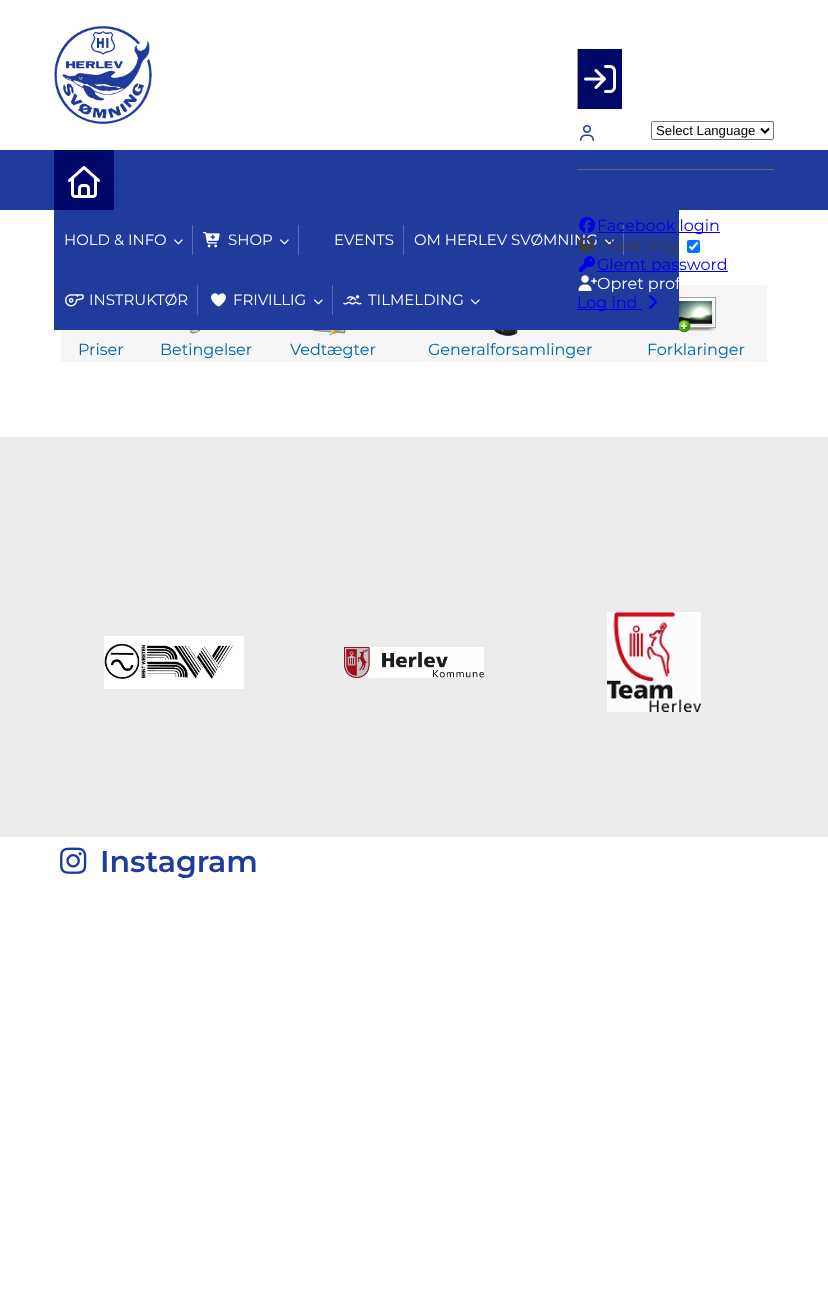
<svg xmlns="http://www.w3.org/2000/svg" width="828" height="1300">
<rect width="100%" height="100%" fill="#fff"/>
<image x="54" y="25" width="98" height="100" href="media/1.png"/>
<rect x="651.5" y="121.5" width="122" height="18" rx="1.5" fill="none" stroke="#767676"/>
<path d="M761 128.5l4 4l4-4" fill="none" stroke="#000" stroke-width="2"/>
<text x="656" y="135" style="font-family:Liberation Sans;font-size:13.25px;fill:#000">Select Language</text>
<rect y="150" width="828" height="60" fill="#1f3b9c"/>
<rect x="61" y="285" width="706" height="77" fill="#f5f5f5"/>
<image x="675" y="297" width="42" height="36" href="media/18.png"/>
<rect x="54" y="210" width="625" height="120" fill="#1f3b9c"/>
<rect x="54" y="150" width="60" height="60" fill="#00096a"/>
<image x="68" y="166" width="32" height="32" href="media/2.png"/>
<text x="64" y="245" style="font-family:Montserrat;font-size:15px;fill:#fff">HOLD &amp; INFO</text>
<image x="174" y="239" width="9" height="6" href="media/3.png"/>
<rect x="192" y="225" width="1" height="30" fill="#576cb5"/>
<image x="203" y="231" width="17" height="17" href="media/4.png"/>
<text x="228" y="245" style="font-family:Montserrat;font-size:15px;fill:#fff">SHOP</text>
<image x="280" y="239" width="9" height="6" href="media/3.png"/>
<rect x="298" y="225" width="1" height="30" fill="#576cb5"/>
<text x="334" y="245" style="font-family:Montserrat;font-size:15px;fill:#fff">EVENTS</text>
<rect x="403" y="225" width="1" height="30" fill="#576cb5"/>
<text x="414" y="245" style="font-family:Montserrat;font-size:15px;fill:#fff">OM HERLEV SVØMNING</text>
<image x="605" y="239" width="9" height="6" href="media/3.png"/>
<rect x="623" y="225" width="1" height="30" fill="#576cb5"/>
<image x="65" y="294" width="19" height="13" href="media/5.png"/>
<text x="89" y="305" style="font-family:Montserrat;font-size:15px;fill:#fff">INSTRUKTØR</text>
<rect x="197" y="285" width="1" height="30" fill="#576cb5"/>
<image x="211" y="293" width="15" height="14" href="media/6.png"/>
<text x="233" y="305" style="font-family:Montserrat;font-size:15px;fill:#fff">FRIVILLIG</text>
<image x="314" y="299" width="9" height="6" href="media/3.png"/>
<rect x="332" y="285" width="1" height="30" fill="#576cb5"/>
<image x="343" y="295" width="19" height="10" href="media/7.png"/>
<text x="368" y="305" style="font-family:Montserrat;font-size:15px;fill:#fff">TILMELDING</text>
<image x="471" y="299" width="9" height="6" href="media/3.png"/>
<rect x="578" y="49" width="44" height="60" fill="#00096a"/>
<rect x="577" y="49" width="1" height="60" fill="#999"/>
<image x="584" y="65" width="32" height="28" href="media/8.png"/>
<image x="580" y="125" width="14" height="16" href="media/9.png"/>
<rect x="577" y="169" width="197" height="1" fill="#666"/>
<image x="579" y="217" width="16" height="16" href="media/10.png"/>
<rect x="597" y="232" width="123" height="1" fill="#00e"/>
<text x="597" y="231" style="font-family:Montserrat;font-size:16px;fill:#00e">Facebook login</text>
<image x="580" y="238" width="14" height="14" href="media/11.png"/>
<text x="601" y="251" style="font-family:Montserrat;font-size:16px;fill:#3d3d3d">Husk mig</text>
<rect x="687" y="240" width="13" height="13" rx="2" fill="#0075ff"/>
<path d="M689.5 246.5l2.5 2.5l5.5-6.5" fill="none" stroke="#fff" stroke-width="2.1"/>
<image x="579" y="256" width="16" height="16" href="media/12.png"/>
<rect x="597" y="271" width="131" height="1" fill="#00e"/>
<text x="597" y="270" style="font-family:Montserrat;font-size:16px;fill:#00e">Glemt password</text>
<image x="578" y="275" width="19" height="16" href="media/13.png"/>
<text x="597" y="289" style="font-family:Montserrat;font-size:16px;fill:#fff">Opret prof</text>
<rect x="577" y="309" width="65" height="1" fill="#00e"/>
<text x="577" y="308" style="font-family:Montserrat;font-size:16px;fill:#00e">Log ind</text>
<image x="649" y="295" width="8" height="14" href="media/14.png"/>
<image x="189" y="330" width="11" height="4" href="media/15.png"/>
<image x="313" y="330" width="35" height="6" href="media/16.png"/>
<image x="494" y="330" width="24" height="6" href="media/17.png"/>
<text x="78" y="355" style="font-family:Montserrat;font-size:16px;fill:#0063a6">Priser</text>
<text x="160" y="355" style="font-family:Montserrat;font-size:16px;fill:#0063a6">Betingelser</text>
<text x="290" y="355" style="font-family:Montserrat;font-size:16px;fill:#0063a6">Vedtægter</text>
<text x="428" y="355" style="font-family:Montserrat;font-size:16px;fill:#0063a6">Generalforsamlinger</text>
<text x="647" y="355" style="font-family:Montserrat;font-size:16px;fill:#0063a6">Forklaringer</text>
<rect y="437" width="828" height="400" fill="#ebebeb"/>
<image x="104" y="636" width="140" height="53" href="media/19.png"/>
<image x="344" y="647" width="140" height="31" href="media/20.png"/>
<image x="607" y="612" width="94" height="100" href="media/21.png"/>
<image x="60" y="847" width="27" height="27" href="media/22.png"/>
<text x="100" y="872" style="font-family:Montserrat;font-size:30px;font-weight:600;fill:#1f3b9c">Instagram</text>
</svg>
